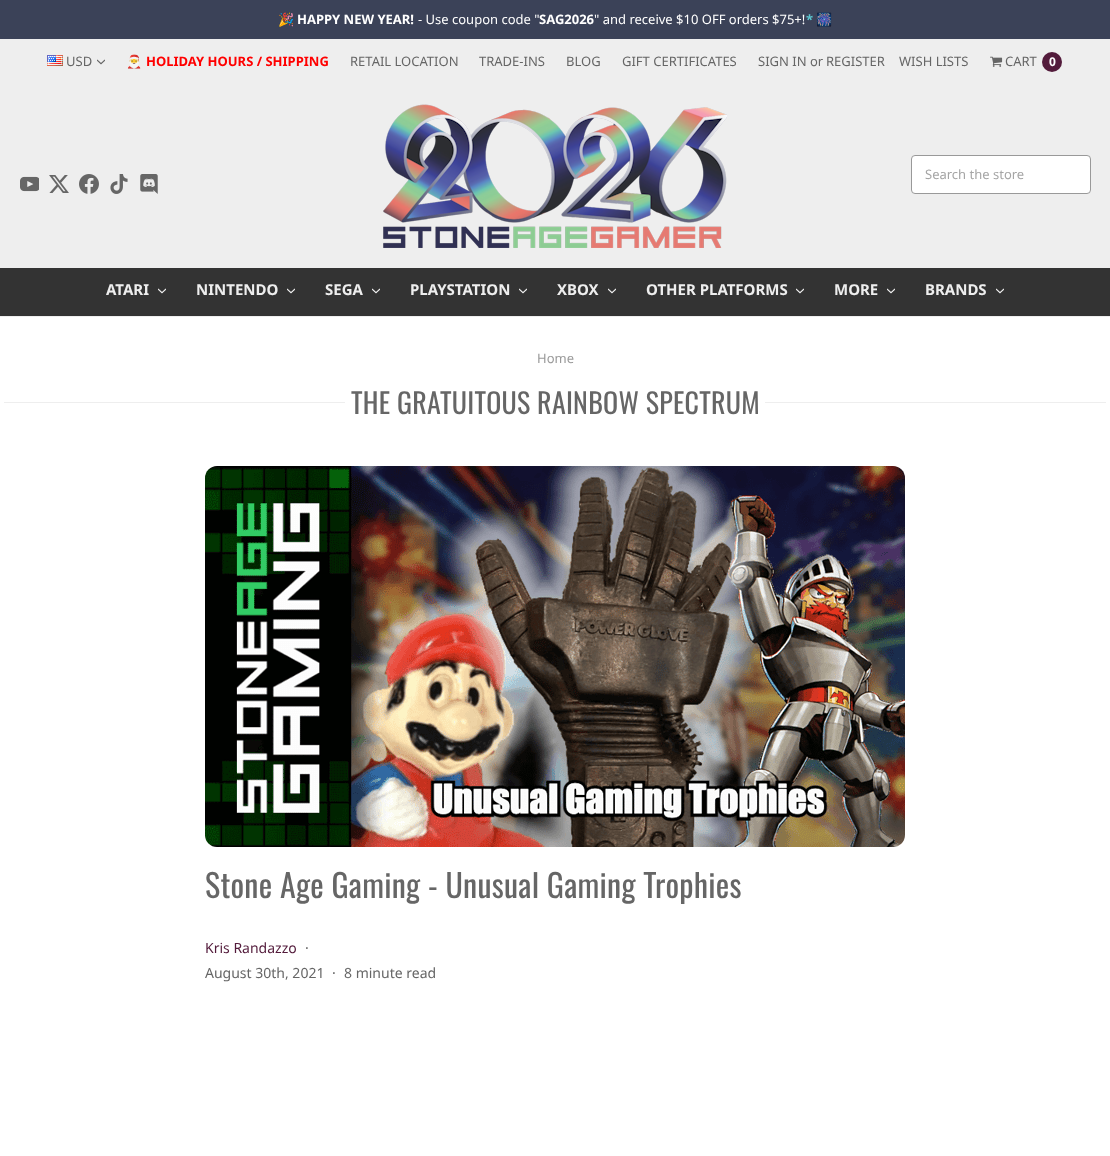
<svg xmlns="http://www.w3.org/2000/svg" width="1110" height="1156">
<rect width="100%" height="100%" fill="#fff"/>
<rect width="1110" height="39" fill="#3b4258"/>
<text x="278" y="24" style="font-family:Noto Color Emoji;font-size:13px;fill:#fff">🎉</text>
<text x="297" y="24" style="font-family:Noto Sans;font-size:13px;font-weight:bold;fill:#fff">HAPPY NEW YEAR!</text>
<text x="418" y="24" style="font-family:Noto Sans;font-size:13px;fill:#fff">- Use coupon code "</text>
<text x="539" y="24" style="font-family:Noto Sans;font-size:13px;font-weight:bold;fill:#fff">SAG2026</text>
<text x="594" y="24" style="font-family:Noto Sans;font-size:13px;fill:#fff">" and receive $10 OFF orders $75+!</text>
<text x="806" y="24" style="font-family:Noto Sans;font-size:13px;font-weight:bold;fill:#5cc6d0">*</text>
<text x="816" y="24" style="font-family:Noto Color Emoji;font-size:13px;fill:#fff">🎆</text>
<rect y="39" width="1110" height="278" fill="#eee"/>
<image x="47" y="55" width="16" height="11" href="media/1.png"/>
<text x="66" y="66" style="font-family:Noto Sans;font-size:13px;fill:#666">USD</text>
<image x="97" y="59" width="8" height="6" href="media/2.png"/>
<text x="126" y="66" style="font-family:Noto Color Emoji;font-size:13px;fill:#666">🎅</text>
<text x="146" y="66" style="font-family:Noto Sans;font-size:13px;font-weight:bold;fill:#f00">HOLIDAY HOURS / SHIPPING</text>
<text x="350" y="66" style="font-family:Noto Sans;font-size:13px;fill:#666">RETAIL LOCATION</text>
<text x="479" y="66" style="font-family:Noto Sans;font-size:13px;fill:#666">TRADE-INS</text>
<text x="566" y="66" style="font-family:Noto Sans;font-size:13px;fill:#666">BLOG</text>
<text x="622" y="66" style="font-family:Noto Sans;font-size:13px;fill:#666">GIFT CERTIFICATES</text>
<text x="758" y="66" style="font-family:Noto Sans;font-size:13px;fill:#666">SIGN IN or</text>
<text x="826" y="66" style="font-family:Noto Sans;font-size:13px;fill:#666">REGISTER</text>
<text x="899" y="66" style="font-family:Noto Sans;font-size:13px;fill:#666">WISH LISTS</text>
<image x="990" y="56" width="13" height="11" href="media/3.png"/>
<text x="1005" y="66" style="font-family:Noto Sans;font-size:13px;fill:#666">CART</text>
<circle cx="1052" cy="62" r="10" fill="#531b3b"/>
<text x="1049" y="66" style="font-family:Noto Sans;font-size:12px;font-weight:bold;fill:#fff">0</text>
<image x="20" y="176" width="19" height="16" href="media/4.png"/>
<image x="49" y="175" width="20" height="18" href="media/5.png"/>
<image x="79" y="174" width="20" height="20" href="media/6.png"/>
<image x="110" y="174" width="18" height="20" href="media/7.png"/>
<image x="140" y="174" width="18" height="20" href="media/8.png"/>
<image x="383" y="104" width="344" height="144" href="media/9.png"/>
<rect x="911.5" y="155.5" width="179" height="38" rx="3.5" fill="#fff" stroke="#999"/>
<text x="925" y="179" style="font-family:Noto Sans;font-size:13px;fill:#a5a5a5">Search the store</text>
<rect y="268" width="1110" height="48" fill="#333"/>
<text x="106" y="295" style="font-family:Noto Sans;font-size:15px;font-weight:bold;fill:#eee">ATARI</text>
<image x="158" y="288" width="8" height="6" href="media/10.png"/>
<text x="196" y="295" style="font-family:Noto Sans;font-size:15px;font-weight:bold;fill:#eee">NINTENDO</text>
<image x="287" y="288" width="8" height="6" href="media/10.png"/>
<text x="325" y="295" style="font-family:Noto Sans;font-size:15px;font-weight:bold;fill:#eee">SEGA</text>
<image x="372" y="288" width="8" height="6" href="media/10.png"/>
<text x="410" y="295" style="font-family:Noto Sans;font-size:15px;font-weight:bold;fill:#eee">PLAYSTATION</text>
<image x="519" y="288" width="8" height="6" href="media/10.png"/>
<text x="557" y="295" style="font-family:Noto Sans;font-size:15px;font-weight:bold;fill:#eee">XBOX</text>
<image x="608" y="288" width="8" height="6" href="media/10.png"/>
<text x="646" y="295" style="font-family:Noto Sans;font-size:15px;font-weight:bold;fill:#eee">OTHER PLATFORMS</text>
<image x="796" y="288" width="8" height="6" href="media/10.png"/>
<text x="834" y="295" style="font-family:Noto Sans;font-size:15px;font-weight:bold;fill:#eee">MORE</text>
<image x="887" y="288" width="8" height="6" href="media/10.png"/>
<text x="925" y="295" style="font-family:Noto Sans;font-size:15px;font-weight:bold;fill:#eee">BRANDS</text>
<image x="996" y="288" width="8" height="6" href="media/10.png"/>
<text x="537" y="363" style="font-family:Noto Sans;font-size:13px;fill:#999">Home</text>
<rect x="4" y="402" width="341" height="1" fill="#eee"/>
<text x="351" y="414" style="font-family:Oswald;font-size:28px;letter-spacing:0.25px;fill:#666">THE GRATUITOUS RAINBOW SPECTRUM</text>
<rect x="765" y="402" width="341" height="1" fill="#eee"/>
<image x="205" y="466" width="700" height="381" href="media/11.png"/>
<text x="205" y="898" style="font-family:Oswald;font-size:32px;letter-spacing:0.25px;fill:#666">Stone Age Gaming - Unusual Gaming Trophies</text>
<text x="205" y="953" style="font-family:Noto Sans;font-size:14px;fill:#531b3b">Kris Randazzo</text>
<text x="305" y="953" style="font-family:Noto Sans;font-size:14px;fill:#666">·</text>
<text x="205" y="978" style="font-family:Noto Sans;font-size:14px;fill:#666">August 30th, 2021</text>
<text x="332" y="978" style="font-family:Noto Sans;font-size:14px;fill:#666">·</text>
<text x="344" y="978" style="font-family:Noto Sans;font-size:14px;fill:#666">8 minute read</text>
</svg>
